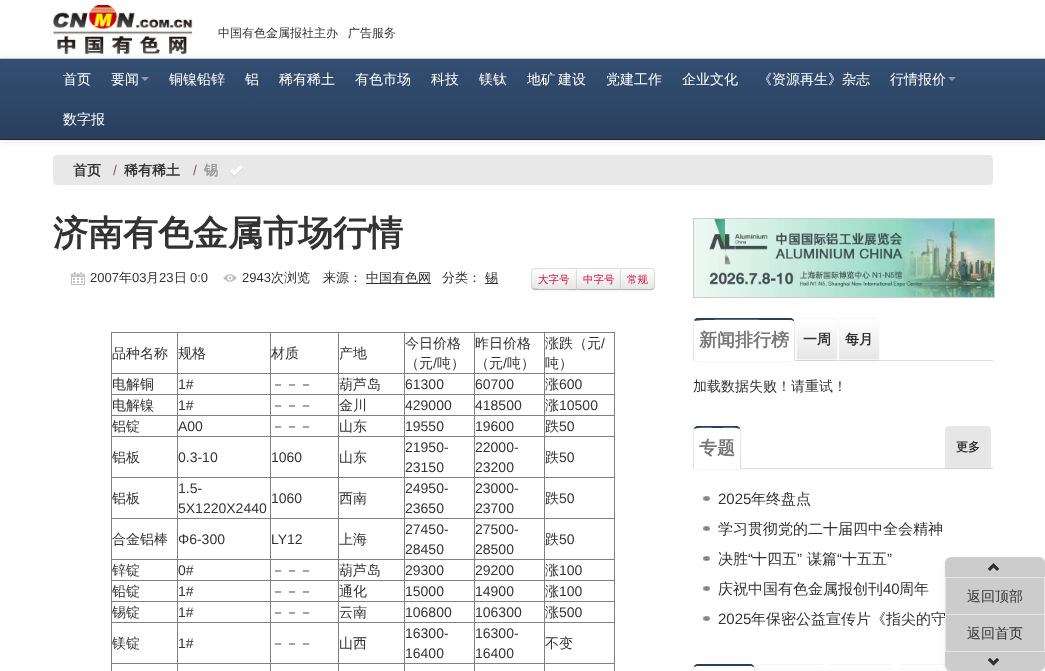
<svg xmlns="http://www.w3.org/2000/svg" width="1045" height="671">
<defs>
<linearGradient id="g1" gradientUnits="userSpaceOnUse" x1="523" y1="59" x2="523" y2="139"><stop offset="0" stop-color="#344f73"/><stop offset="1" stop-color="#293f5e"/></linearGradient>
<clipPath id="clip1"><path d="M535 268h42v22h-42c-2 0-4-2-4-4v-14c0-2 2-4 4-4z"/></clipPath>
<linearGradient id="g2" gradientUnits="userSpaceOnUse" x1="554" y1="269" x2="554" y2="289"><stop offset="0" stop-color="#fff"/><stop offset="1" stop-color="#e6e6e6"/></linearGradient>
<linearGradient id="g3" gradientUnits="userSpaceOnUse" x1="599" y1="269" x2="599" y2="289"><stop offset="0" stop-color="#fff"/><stop offset="1" stop-color="#e6e6e6"/></linearGradient>
<clipPath id="clip2"><path d="M620 268h31c2 0 4 2 4 4v14c0 2-2 4-4 4h-31z"/></clipPath>
<linearGradient id="g4" gradientUnits="userSpaceOnUse" x1="638" y1="269" x2="638" y2="289"><stop offset="0" stop-color="#fff"/><stop offset="1" stop-color="#e6e6e6"/></linearGradient>
<clipPath id="clip3"><path d="M801 318h32c2 0 4 2 4 4v38h-40v-38c0-2 2-4 4-4z"/></clipPath>
<linearGradient id="g5" gradientUnits="userSpaceOnUse" x1="817" y1="319" x2="817" y2="359"><stop offset="0" stop-color="#fff"/><stop offset="1" stop-color="#e6e6e6"/></linearGradient>
<clipPath id="clip4"><path d="M843 318h32c2 0 4 2 4 4v38h-40v-38c0-2 2-4 4-4z"/></clipPath>
<linearGradient id="g6" gradientUnits="userSpaceOnUse" x1="859" y1="319" x2="859" y2="359"><stop offset="0" stop-color="#fff"/><stop offset="1" stop-color="#e6e6e6"/></linearGradient>
<clipPath id="clip5"><path d="M761 664h60c2 0 4 2 4 4v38h-68v-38c0-2 2-4 4-4z"/></clipPath>
<linearGradient id="g7" gradientUnits="userSpaceOnUse" x1="791" y1="665" x2="791" y2="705"><stop offset="0" stop-color="#fff"/><stop offset="1" stop-color="#e6e6e6"/></linearGradient>
<clipPath id="clip6"><path d="M831 664h60c2 0 4 2 4 4v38h-68v-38c0-2 2-4 4-4z"/></clipPath>
<linearGradient id="g8" gradientUnits="userSpaceOnUse" x1="861" y1="665" x2="861" y2="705"><stop offset="0" stop-color="#fff"/><stop offset="1" stop-color="#e6e6e6"/></linearGradient>
<clipPath id="clip7"><path d="M901 664h60c2 0 4 2 4 4v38h-68v-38c0-2 2-4 4-4z"/></clipPath>
<linearGradient id="g9" gradientUnits="userSpaceOnUse" x1="931" y1="665" x2="931" y2="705"><stop offset="0" stop-color="#fff"/><stop offset="1" stop-color="#e6e6e6"/></linearGradient>
</defs>
<rect width="100%" height="100%" fill="#fff"/>
<rect y="58" width="1045" height="1" fill="#ccc"/>
<rect y="60" width="1045" height="81" fill="#0000001a" filter="blur(5px)"/>
<image x="53" y="5" width="140" height="50" href="media/1.png"/>
<text x="218" y="37" style="font-family:WenQuanYi Zen Hei;font-size:12px;font-weight:500;fill:#333">中国有色金属报社主办</text>
<text x="348" y="37" style="font-family:WenQuanYi Zen Hei;font-size:12px;font-weight:500;fill:#333">广告服务</text>
<rect y="59" width="1045" height="80" fill="url(#g1)"/>
<rect y="139" width="1045" height="1" fill="#252525"/>
<text x="63" y="84" style="font-family:WenQuanYi Zen Hei;font-size:14px;font-weight:500;fill:#fff">首页</text>
<text x="111" y="84" style="font-family:WenQuanYi Zen Hei;font-size:14px;font-weight:500;fill:#fff">要闻</text>
<path d="M141 77h8l-4 4z" fill="#999"/>
<text x="169" y="84" style="font-family:WenQuanYi Zen Hei;font-size:14px;font-weight:500;fill:#fff">铜镍铅锌</text>
<text x="245" y="84" style="font-family:WenQuanYi Zen Hei;font-size:14px;font-weight:500;fill:#fff">铝</text>
<text x="279" y="84" style="font-family:WenQuanYi Zen Hei;font-size:14px;font-weight:500;fill:#fff">稀有稀土</text>
<text x="355" y="84" style="font-family:WenQuanYi Zen Hei;font-size:14px;font-weight:500;fill:#fff">有色市场</text>
<text x="431" y="84" style="font-family:WenQuanYi Zen Hei;font-size:14px;font-weight:500;fill:#fff">科技</text>
<text x="479" y="84" style="font-family:WenQuanYi Zen Hei;font-size:14px;font-weight:500;fill:#fff">镁钛</text>
<text x="527" y="84" style="font-family:WenQuanYi Zen Hei;font-size:14px;font-weight:500;fill:#fff">地矿</text>
<text x="558" y="84" style="font-family:WenQuanYi Zen Hei;font-size:14px;font-weight:500;fill:#fff">建设</text>
<text x="606" y="84" style="font-family:WenQuanYi Zen Hei;font-size:14px;font-weight:500;fill:#fff">党建工作</text>
<text x="682" y="84" style="font-family:WenQuanYi Zen Hei;font-size:14px;font-weight:500;fill:#fff">企业文化</text>
<text x="758" y="84" style="font-family:WenQuanYi Zen Hei;font-size:14px;font-weight:500;fill:#fff">《资源再生》杂志</text>
<text x="890" y="84" style="font-family:WenQuanYi Zen Hei;font-size:14px;font-weight:500;fill:#fff">行情报价</text>
<path d="M948 77h8l-4 4z" fill="#999"/>
<text x="63" y="124" style="font-family:WenQuanYi Zen Hei;font-size:14px;font-weight:500;fill:#fff">数字报</text>
<rect x="53" y="155" width="940" height="30" rx="4" fill="#e8e8e8"/>
<text x="73" y="175" style="font-family:WenQuanYi Zen Hei;font-size:14px;font-weight:bold;fill:#333">首页</text>
<text x="113" y="175" style="font-family:Liberation Sans;font-size:14px;fill:#985a55">/</text>
<text x="124" y="175" style="font-family:WenQuanYi Zen Hei;font-size:14px;font-weight:bold;fill:#333">稀有稀土</text>
<text x="193" y="175" style="font-family:Liberation Sans;font-size:14px;fill:#985a55">/</text>
<text x="204" y="175" style="font-family:WenQuanYi Zen Hei;font-size:14px;font-weight:bold;fill:#999">锡</text>
<image x="230" y="165" width="13" height="12" href="media/2.png"/>
<text x="53" y="245" style="font-family:WenQuanYi Zen Hei;font-size:35px;font-weight:bold;fill:#333">济南有色金属市场行情</text>
<image x="70" y="272" width="15" height="13" href="media/3.png"/>
<text x="90" y="282" style="font-family:Liberation Sans;font-size:13px;fill:#333">2007</text>
<text x="119" y="282" style="font-family:WenQuanYi Zen Hei;font-size:13px;font-weight:500;fill:#333">年</text>
<text x="132" y="282" style="font-family:Liberation Sans;font-size:13px;fill:#333">03</text>
<text x="146" y="282" style="font-family:WenQuanYi Zen Hei;font-size:13px;font-weight:500;fill:#333">月</text>
<text x="159" y="282" style="font-family:Liberation Sans;font-size:13px;fill:#333">23</text>
<text x="174" y="282" style="font-family:WenQuanYi Zen Hei;font-size:13px;font-weight:500;fill:#333">日</text>
<text x="190" y="282" style="font-family:Liberation Sans;font-size:13px;fill:#333">0:0</text>
<image x="223" y="274" width="14" height="8" href="media/4.png"/>
<text x="242" y="282" style="font-family:Liberation Sans;font-size:13px;fill:#333">2943</text>
<text x="271" y="282" style="font-family:WenQuanYi Zen Hei;font-size:13px;font-weight:500;fill:#333">次浏览</text>
<text x="323" y="282" style="font-family:WenQuanYi Zen Hei;font-size:13px;font-weight:500;fill:#333">来源：</text>
<rect x="366" y="283" width="65" height="1" fill="#333"/>
<text x="366" y="282" style="font-family:WenQuanYi Zen Hei;font-size:13px;font-weight:500;fill:#333">中国有色网</text>
<text x="442" y="282" style="font-family:WenQuanYi Zen Hei;font-size:13px;font-weight:500;fill:#333">分类：</text>
<rect x="485" y="283" width="13" height="1" fill="#333"/>
<text x="485" y="282" style="font-family:WenQuanYi Zen Hei;font-size:13px;font-weight:500;fill:#333">锡</text>
<rect x="531" y="269" width="46" height="22" rx="4" fill="#0000000d" filter="blur(1px)"/>
<path d="M535 268h42v22h-42c-2 0-4-2-4-4v-14c0-2 2-4 4-4z" fill="#f5f5f5"/>
<g clip-path="url(#clip1)">
<rect x="531" y="269" width="45" height="20" fill="url(#g2)"/>
</g>
<path d="M535 268l-3 1l1 1c2-2 38-1 43-1l1-1z" fill="#0000001a"/>
<path d="M577 290l-1-1c-5 0-41 1-43-1l-1 1l3 1z" fill="#b3b3b3"/>
<path d="M531 272v14c0 1 .5 2 1 3l1-1c-1.5-1-1-7.5-1-9c0-1.5-.5-8 1-9l-1-1c-.5 1-1 2-1 3z" fill="#0000001a"/>
<text x="538" y="283" style="font-family:WenQuanYi Zen Hei;font-size:10.5px;font-weight:500;fill:#dc143c">大字号</text>
<rect x="576" y="269" width="45" height="22" fill="#0000000d" filter="blur(1px)"/>
<rect x="576" y="268" width="1" height="22" fill="#f5f5f5"/>
<rect x="576" y="269" width="44" height="20" fill="url(#g3)"/>
<path d="M576 268h45l-1 1h-43z" fill="#ddd"/>
<path d="M621 290h-45l1-1h43z" fill="#b3b3b3"/>
<path d="M576 290v-22l1 1v20z" fill="#0000001a"/>
<text x="583" y="283" style="font-family:WenQuanYi Zen Hei;font-size:10.5px;font-weight:500;fill:#dc143c">中字号</text>
<rect x="620" y="269" width="35" height="22" rx="4" fill="#0000000d" filter="blur(1px)"/>
<path d="M620 268h31c2 0 4 2 4 4v14c0 2-2 4-4 4h-31z" fill="#f5f5f5"/>
<g clip-path="url(#clip2)">
<rect x="620" y="269" width="35" height="20" fill="url(#g4)"/>
</g>
<path d="M620 268l1 1h30c1 0 1.5 .5 2 1l1-1c-1-.5-2-1-3-1z" fill="#0000001a"/>
<path d="M655 286v-14c0-1-.5-2-1-3l-1 1c.5 .5 1 1 1 2v14c0 1-.5 1.5-1 2l1 1c.5-1 1-2 1-3z" fill="#0000001a"/>
<path d="M651 290c1 0 2-.5 3-1l-1-1c-.5 .5-1 1-2 1h-30l-1 1z" fill="#b3b3b3"/>
<path d="M620 268v22l1-1v-20z" fill="#0000001a"/>
<text x="627" y="283" style="font-family:WenQuanYi Zen Hei;font-size:10.5px;font-weight:500;fill:#dc143c">常规</text>
<rect x="111" y="332" width="504" height="1" fill="#808080"/>
<rect x="614" y="332" width="1" height="339" fill="#808080"/>
<rect x="111" y="332" width="1" height="339" fill="#808080"/>
<text x="112" y="358" style="font-family:WenQuanYi Zen Hei;font-size:14px;font-weight:500;fill:#333">品种名称</text>
<rect x="544" y="373" width="71" height="1" fill="#808080"/>
<rect x="544" y="394" width="71" height="1" fill="#808080"/>
<rect x="544" y="415" width="71" height="1" fill="#808080"/>
<rect x="544" y="436" width="71" height="1" fill="#808080"/>
<rect x="544" y="477" width="71" height="1" fill="#808080"/>
<rect x="544" y="518" width="71" height="1" fill="#808080"/>
<rect x="544" y="559" width="71" height="1" fill="#808080"/>
<rect x="544" y="580" width="71" height="1" fill="#808080"/>
<rect x="544" y="601" width="71" height="1" fill="#808080"/>
<rect x="544" y="622" width="71" height="1" fill="#808080"/>
<rect x="544" y="663" width="71" height="1" fill="#808080"/>
<rect x="544" y="663" width="1" height="8" fill="#808080"/>
<rect x="474" y="663" width="71" height="1" fill="#808080"/>
<rect x="544" y="622" width="1" height="42" fill="#808080"/>
<rect x="474" y="622" width="71" height="1" fill="#808080"/>
<rect x="544" y="601" width="1" height="22" fill="#808080"/>
<rect x="474" y="601" width="71" height="1" fill="#808080"/>
<rect x="544" y="580" width="1" height="22" fill="#808080"/>
<rect x="474" y="580" width="71" height="1" fill="#808080"/>
<rect x="544" y="559" width="1" height="22" fill="#808080"/>
<rect x="474" y="559" width="71" height="1" fill="#808080"/>
<rect x="544" y="518" width="1" height="42" fill="#808080"/>
<rect x="474" y="518" width="71" height="1" fill="#808080"/>
<rect x="544" y="477" width="1" height="42" fill="#808080"/>
<rect x="474" y="477" width="71" height="1" fill="#808080"/>
<rect x="544" y="436" width="1" height="42" fill="#808080"/>
<rect x="474" y="436" width="71" height="1" fill="#808080"/>
<rect x="544" y="415" width="1" height="22" fill="#808080"/>
<rect x="474" y="415" width="71" height="1" fill="#808080"/>
<rect x="544" y="394" width="1" height="22" fill="#808080"/>
<rect x="474" y="394" width="71" height="1" fill="#808080"/>
<rect x="544" y="373" width="1" height="22" fill="#808080"/>
<rect x="474" y="373" width="71" height="1" fill="#808080"/>
<rect x="474" y="663" width="1" height="8" fill="#808080"/>
<rect x="404" y="663" width="71" height="1" fill="#808080"/>
<rect x="474" y="622" width="1" height="42" fill="#808080"/>
<rect x="404" y="622" width="71" height="1" fill="#808080"/>
<rect x="474" y="601" width="1" height="22" fill="#808080"/>
<rect x="404" y="601" width="71" height="1" fill="#808080"/>
<rect x="474" y="580" width="1" height="22" fill="#808080"/>
<rect x="404" y="580" width="71" height="1" fill="#808080"/>
<rect x="474" y="559" width="1" height="22" fill="#808080"/>
<rect x="404" y="559" width="71" height="1" fill="#808080"/>
<rect x="474" y="518" width="1" height="42" fill="#808080"/>
<rect x="404" y="518" width="71" height="1" fill="#808080"/>
<rect x="474" y="477" width="1" height="42" fill="#808080"/>
<rect x="404" y="477" width="71" height="1" fill="#808080"/>
<rect x="474" y="436" width="1" height="42" fill="#808080"/>
<rect x="404" y="436" width="71" height="1" fill="#808080"/>
<rect x="474" y="415" width="1" height="22" fill="#808080"/>
<rect x="404" y="415" width="71" height="1" fill="#808080"/>
<rect x="474" y="394" width="1" height="22" fill="#808080"/>
<rect x="404" y="394" width="71" height="1" fill="#808080"/>
<rect x="474" y="373" width="1" height="22" fill="#808080"/>
<rect x="404" y="373" width="71" height="1" fill="#808080"/>
<rect x="404" y="663" width="1" height="8" fill="#808080"/>
<rect x="338" y="663" width="67" height="1" fill="#808080"/>
<rect x="404" y="622" width="1" height="42" fill="#808080"/>
<rect x="338" y="622" width="67" height="1" fill="#808080"/>
<rect x="404" y="601" width="1" height="22" fill="#808080"/>
<rect x="338" y="601" width="67" height="1" fill="#808080"/>
<rect x="404" y="580" width="1" height="22" fill="#808080"/>
<rect x="338" y="580" width="67" height="1" fill="#808080"/>
<rect x="404" y="559" width="1" height="22" fill="#808080"/>
<rect x="338" y="559" width="67" height="1" fill="#808080"/>
<rect x="404" y="518" width="1" height="42" fill="#808080"/>
<rect x="338" y="518" width="67" height="1" fill="#808080"/>
<rect x="404" y="477" width="1" height="42" fill="#808080"/>
<rect x="338" y="477" width="67" height="1" fill="#808080"/>
<rect x="404" y="436" width="1" height="42" fill="#808080"/>
<rect x="338" y="436" width="67" height="1" fill="#808080"/>
<rect x="404" y="415" width="1" height="22" fill="#808080"/>
<rect x="338" y="415" width="67" height="1" fill="#808080"/>
<rect x="404" y="394" width="1" height="22" fill="#808080"/>
<rect x="338" y="394" width="67" height="1" fill="#808080"/>
<rect x="404" y="373" width="1" height="22" fill="#808080"/>
<rect x="338" y="373" width="67" height="1" fill="#808080"/>
<rect x="338" y="663" width="1" height="8" fill="#808080"/>
<rect x="270" y="663" width="69" height="1" fill="#808080"/>
<rect x="338" y="622" width="1" height="42" fill="#808080"/>
<rect x="270" y="622" width="69" height="1" fill="#808080"/>
<rect x="338" y="601" width="1" height="22" fill="#808080"/>
<rect x="270" y="601" width="69" height="1" fill="#808080"/>
<rect x="338" y="580" width="1" height="22" fill="#808080"/>
<rect x="270" y="580" width="69" height="1" fill="#808080"/>
<rect x="338" y="559" width="1" height="22" fill="#808080"/>
<rect x="270" y="559" width="69" height="1" fill="#808080"/>
<rect x="338" y="518" width="1" height="42" fill="#808080"/>
<rect x="270" y="518" width="69" height="1" fill="#808080"/>
<rect x="338" y="477" width="1" height="42" fill="#808080"/>
<rect x="270" y="477" width="69" height="1" fill="#808080"/>
<rect x="338" y="436" width="1" height="42" fill="#808080"/>
<rect x="270" y="436" width="69" height="1" fill="#808080"/>
<rect x="338" y="415" width="1" height="22" fill="#808080"/>
<rect x="270" y="415" width="69" height="1" fill="#808080"/>
<rect x="338" y="394" width="1" height="22" fill="#808080"/>
<rect x="270" y="394" width="69" height="1" fill="#808080"/>
<rect x="338" y="373" width="1" height="22" fill="#808080"/>
<rect x="270" y="373" width="69" height="1" fill="#808080"/>
<rect x="270" y="663" width="1" height="8" fill="#808080"/>
<rect x="177" y="663" width="94" height="1" fill="#808080"/>
<rect x="270" y="622" width="1" height="42" fill="#808080"/>
<rect x="177" y="622" width="94" height="1" fill="#808080"/>
<rect x="270" y="601" width="1" height="22" fill="#808080"/>
<rect x="177" y="601" width="94" height="1" fill="#808080"/>
<rect x="270" y="580" width="1" height="22" fill="#808080"/>
<rect x="177" y="580" width="94" height="1" fill="#808080"/>
<rect x="270" y="559" width="1" height="22" fill="#808080"/>
<rect x="177" y="559" width="94" height="1" fill="#808080"/>
<rect x="270" y="518" width="1" height="42" fill="#808080"/>
<rect x="177" y="518" width="94" height="1" fill="#808080"/>
<rect x="270" y="477" width="1" height="42" fill="#808080"/>
<rect x="177" y="477" width="94" height="1" fill="#808080"/>
<rect x="270" y="436" width="1" height="42" fill="#808080"/>
<rect x="177" y="436" width="94" height="1" fill="#808080"/>
<rect x="270" y="415" width="1" height="22" fill="#808080"/>
<rect x="177" y="415" width="94" height="1" fill="#808080"/>
<rect x="270" y="394" width="1" height="22" fill="#808080"/>
<rect x="177" y="394" width="94" height="1" fill="#808080"/>
<rect x="270" y="373" width="1" height="22" fill="#808080"/>
<rect x="177" y="373" width="94" height="1" fill="#808080"/>
<rect x="177" y="663" width="1" height="8" fill="#808080"/>
<rect x="111" y="663" width="67" height="1" fill="#808080"/>
<rect x="177" y="622" width="1" height="42" fill="#808080"/>
<rect x="111" y="622" width="67" height="1" fill="#808080"/>
<rect x="177" y="601" width="1" height="22" fill="#808080"/>
<rect x="111" y="601" width="67" height="1" fill="#808080"/>
<rect x="177" y="580" width="1" height="22" fill="#808080"/>
<rect x="111" y="580" width="67" height="1" fill="#808080"/>
<rect x="177" y="559" width="1" height="22" fill="#808080"/>
<rect x="111" y="559" width="67" height="1" fill="#808080"/>
<rect x="177" y="518" width="1" height="42" fill="#808080"/>
<rect x="111" y="518" width="67" height="1" fill="#808080"/>
<rect x="177" y="477" width="1" height="42" fill="#808080"/>
<rect x="111" y="477" width="67" height="1" fill="#808080"/>
<rect x="177" y="436" width="1" height="42" fill="#808080"/>
<rect x="111" y="436" width="67" height="1" fill="#808080"/>
<rect x="177" y="415" width="1" height="22" fill="#808080"/>
<rect x="111" y="415" width="67" height="1" fill="#808080"/>
<rect x="177" y="394" width="1" height="22" fill="#808080"/>
<rect x="111" y="394" width="67" height="1" fill="#808080"/>
<rect x="177" y="373" width="1" height="22" fill="#808080"/>
<rect x="111" y="373" width="67" height="1" fill="#808080"/>
<rect x="177" y="332" width="1" height="42" fill="#808080"/>
<text x="178" y="358" style="font-family:WenQuanYi Zen Hei;font-size:14px;font-weight:500;fill:#333">规格</text>
<rect x="270" y="332" width="1" height="42" fill="#808080"/>
<text x="271" y="358" style="font-family:WenQuanYi Zen Hei;font-size:14px;font-weight:500;fill:#333">材质</text>
<rect x="338" y="332" width="1" height="42" fill="#808080"/>
<text x="339" y="358" style="font-family:WenQuanYi Zen Hei;font-size:14px;font-weight:500;fill:#333">产地</text>
<rect x="404" y="332" width="1" height="42" fill="#808080"/>
<text x="405" y="348" style="font-family:WenQuanYi Zen Hei;font-size:14px;font-weight:500;fill:#333">今日价格</text>
<text x="405" y="368" style="font-family:WenQuanYi Zen Hei;font-size:14px;font-weight:500;fill:#333">（元</text>
<text x="433" y="368" style="font-family:Liberation Sans;font-size:14px;fill:#333">/</text>
<text x="437" y="368" style="font-family:WenQuanYi Zen Hei;font-size:14px;font-weight:500;fill:#333">吨）</text>
<rect x="474" y="332" width="1" height="42" fill="#808080"/>
<text x="475" y="348" style="font-family:WenQuanYi Zen Hei;font-size:14px;font-weight:500;fill:#333">昨日价格</text>
<text x="475" y="368" style="font-family:WenQuanYi Zen Hei;font-size:14px;font-weight:500;fill:#333">（元</text>
<text x="503" y="368" style="font-family:Liberation Sans;font-size:14px;fill:#333">/</text>
<text x="507" y="368" style="font-family:WenQuanYi Zen Hei;font-size:14px;font-weight:500;fill:#333">吨）</text>
<rect x="544" y="332" width="1" height="42" fill="#808080"/>
<text x="545" y="348" style="font-family:WenQuanYi Zen Hei;font-size:14px;font-weight:500;fill:#333">涨跌（元</text>
<text x="601" y="348" style="font-family:Liberation Sans;font-size:14px;fill:#333">/</text>
<text x="545" y="368" style="font-family:WenQuanYi Zen Hei;font-size:14px;font-weight:500;fill:#333">吨）</text>
<text x="112" y="389" style="font-family:WenQuanYi Zen Hei;font-size:14px;font-weight:500;fill:#333">电解铜</text>
<text x="178" y="389" style="font-family:Liberation Sans;font-size:14px;fill:#333">1#</text>
<text x="271" y="389" style="font-family:WenQuanYi Zen Hei;font-size:14px;font-weight:500;fill:#333">－－－</text>
<text x="339" y="389" style="font-family:WenQuanYi Zen Hei;font-size:14px;font-weight:500;fill:#333">葫芦岛</text>
<text x="405" y="389" style="font-family:Liberation Sans;font-size:14px;fill:#333">61300</text>
<text x="475" y="389" style="font-family:Liberation Sans;font-size:14px;fill:#333">60700</text>
<text x="545" y="389" style="font-family:WenQuanYi Zen Hei;font-size:14px;font-weight:500;fill:#333">涨</text>
<text x="559" y="389" style="font-family:Liberation Sans;font-size:14px;fill:#333">600</text>
<text x="112" y="410" style="font-family:WenQuanYi Zen Hei;font-size:14px;font-weight:500;fill:#333">电解镍</text>
<text x="178" y="410" style="font-family:Liberation Sans;font-size:14px;fill:#333">1#</text>
<text x="271" y="410" style="font-family:WenQuanYi Zen Hei;font-size:14px;font-weight:500;fill:#333">－－－</text>
<text x="339" y="410" style="font-family:WenQuanYi Zen Hei;font-size:14px;font-weight:500;fill:#333">金川</text>
<text x="405" y="410" style="font-family:Liberation Sans;font-size:14px;fill:#333">429000</text>
<text x="475" y="410" style="font-family:Liberation Sans;font-size:14px;fill:#333">418500</text>
<text x="545" y="410" style="font-family:WenQuanYi Zen Hei;font-size:14px;font-weight:500;fill:#333">涨</text>
<text x="559" y="410" style="font-family:Liberation Sans;font-size:14px;fill:#333">10500</text>
<text x="112" y="431" style="font-family:WenQuanYi Zen Hei;font-size:14px;font-weight:500;fill:#333">铝锭</text>
<text x="178" y="431" style="font-family:Liberation Sans;font-size:14px;fill:#333">A00</text>
<text x="271" y="431" style="font-family:WenQuanYi Zen Hei;font-size:14px;font-weight:500;fill:#333">－－－</text>
<text x="339" y="431" style="font-family:WenQuanYi Zen Hei;font-size:14px;font-weight:500;fill:#333">山东</text>
<text x="405" y="431" style="font-family:Liberation Sans;font-size:14px;fill:#333">19550</text>
<text x="475" y="431" style="font-family:Liberation Sans;font-size:14px;fill:#333">19600</text>
<text x="545" y="431" style="font-family:WenQuanYi Zen Hei;font-size:14px;font-weight:500;fill:#333">跌</text>
<text x="559" y="431" style="font-family:Liberation Sans;font-size:14px;fill:#333">50</text>
<text x="112" y="462" style="font-family:WenQuanYi Zen Hei;font-size:14px;font-weight:500;fill:#333">铝板</text>
<text x="178" y="462" style="font-family:Liberation Sans;font-size:14px;fill:#333">0.3-10</text>
<text x="271" y="462" style="font-family:Liberation Sans;font-size:14px;fill:#333">1060</text>
<text x="339" y="462" style="font-family:WenQuanYi Zen Hei;font-size:14px;font-weight:500;fill:#333">山东</text>
<text x="405" y="452" style="font-family:Liberation Sans;font-size:14px;fill:#333">21950-</text>
<text x="405" y="472" style="font-family:Liberation Sans;font-size:14px;fill:#333">23150</text>
<text x="475" y="452" style="font-family:Liberation Sans;font-size:14px;fill:#333">22000-</text>
<text x="475" y="472" style="font-family:Liberation Sans;font-size:14px;fill:#333">23200</text>
<text x="545" y="462" style="font-family:WenQuanYi Zen Hei;font-size:14px;font-weight:500;fill:#333">跌</text>
<text x="559" y="462" style="font-family:Liberation Sans;font-size:14px;fill:#333">50</text>
<text x="112" y="503" style="font-family:WenQuanYi Zen Hei;font-size:14px;font-weight:500;fill:#333">铝板</text>
<text x="178" y="493" style="font-family:Liberation Sans;font-size:14px;fill:#333">1.5-</text>
<text x="178" y="513" style="font-family:Liberation Sans;font-size:14px;fill:#333">5X1220X2440</text>
<text x="271" y="503" style="font-family:Liberation Sans;font-size:14px;fill:#333">1060</text>
<text x="339" y="503" style="font-family:WenQuanYi Zen Hei;font-size:14px;font-weight:500;fill:#333">西南</text>
<text x="405" y="493" style="font-family:Liberation Sans;font-size:14px;fill:#333">24950-</text>
<text x="405" y="513" style="font-family:Liberation Sans;font-size:14px;fill:#333">23650</text>
<text x="475" y="493" style="font-family:Liberation Sans;font-size:14px;fill:#333">23000-</text>
<text x="475" y="513" style="font-family:Liberation Sans;font-size:14px;fill:#333">23700</text>
<text x="545" y="503" style="font-family:WenQuanYi Zen Hei;font-size:14px;font-weight:500;fill:#333">跌</text>
<text x="559" y="503" style="font-family:Liberation Sans;font-size:14px;fill:#333">50</text>
<text x="112" y="544" style="font-family:WenQuanYi Zen Hei;font-size:14px;font-weight:500;fill:#333">合金铝棒</text>
<text x="178" y="544" style="font-family:Liberation Sans;font-size:14px;fill:#333">Φ6-300</text>
<text x="271" y="544" style="font-family:Liberation Sans;font-size:14px;fill:#333">LY12</text>
<text x="339" y="544" style="font-family:WenQuanYi Zen Hei;font-size:14px;font-weight:500;fill:#333">上海</text>
<text x="405" y="534" style="font-family:Liberation Sans;font-size:14px;fill:#333">27450-</text>
<text x="405" y="554" style="font-family:Liberation Sans;font-size:14px;fill:#333">28450</text>
<text x="475" y="534" style="font-family:Liberation Sans;font-size:14px;fill:#333">27500-</text>
<text x="475" y="554" style="font-family:Liberation Sans;font-size:14px;fill:#333">28500</text>
<text x="545" y="544" style="font-family:WenQuanYi Zen Hei;font-size:14px;font-weight:500;fill:#333">跌</text>
<text x="559" y="544" style="font-family:Liberation Sans;font-size:14px;fill:#333">50</text>
<text x="112" y="575" style="font-family:WenQuanYi Zen Hei;font-size:14px;font-weight:500;fill:#333">锌锭</text>
<text x="178" y="575" style="font-family:Liberation Sans;font-size:14px;fill:#333">0#</text>
<text x="271" y="575" style="font-family:WenQuanYi Zen Hei;font-size:14px;font-weight:500;fill:#333">－－－</text>
<text x="339" y="575" style="font-family:WenQuanYi Zen Hei;font-size:14px;font-weight:500;fill:#333">葫芦岛</text>
<text x="405" y="575" style="font-family:Liberation Sans;font-size:14px;fill:#333">29300</text>
<text x="475" y="575" style="font-family:Liberation Sans;font-size:14px;fill:#333">29200</text>
<text x="545" y="575" style="font-family:WenQuanYi Zen Hei;font-size:14px;font-weight:500;fill:#333">涨</text>
<text x="559" y="575" style="font-family:Liberation Sans;font-size:14px;fill:#333">100</text>
<text x="112" y="596" style="font-family:WenQuanYi Zen Hei;font-size:14px;font-weight:500;fill:#333">铅锭</text>
<text x="178" y="596" style="font-family:Liberation Sans;font-size:14px;fill:#333">1#</text>
<text x="271" y="596" style="font-family:WenQuanYi Zen Hei;font-size:14px;font-weight:500;fill:#333">－－－</text>
<text x="339" y="596" style="font-family:WenQuanYi Zen Hei;font-size:14px;font-weight:500;fill:#333">通化</text>
<text x="405" y="596" style="font-family:Liberation Sans;font-size:14px;fill:#333">15000</text>
<text x="475" y="596" style="font-family:Liberation Sans;font-size:14px;fill:#333">14900</text>
<text x="545" y="596" style="font-family:WenQuanYi Zen Hei;font-size:14px;font-weight:500;fill:#333">涨</text>
<text x="559" y="596" style="font-family:Liberation Sans;font-size:14px;fill:#333">100</text>
<text x="112" y="617" style="font-family:WenQuanYi Zen Hei;font-size:14px;font-weight:500;fill:#333">锡锭</text>
<text x="178" y="617" style="font-family:Liberation Sans;font-size:14px;fill:#333">1#</text>
<text x="271" y="617" style="font-family:WenQuanYi Zen Hei;font-size:14px;font-weight:500;fill:#333">－－－</text>
<text x="339" y="617" style="font-family:WenQuanYi Zen Hei;font-size:14px;font-weight:500;fill:#333">云南</text>
<text x="405" y="617" style="font-family:Liberation Sans;font-size:14px;fill:#333">106800</text>
<text x="475" y="617" style="font-family:Liberation Sans;font-size:14px;fill:#333">106300</text>
<text x="545" y="617" style="font-family:WenQuanYi Zen Hei;font-size:14px;font-weight:500;fill:#333">涨</text>
<text x="559" y="617" style="font-family:Liberation Sans;font-size:14px;fill:#333">500</text>
<text x="112" y="648" style="font-family:WenQuanYi Zen Hei;font-size:14px;font-weight:500;fill:#333">镁锭</text>
<text x="178" y="648" style="font-family:Liberation Sans;font-size:14px;fill:#333">1#</text>
<text x="271" y="648" style="font-family:WenQuanYi Zen Hei;font-size:14px;font-weight:500;fill:#333">－－－</text>
<text x="339" y="648" style="font-family:WenQuanYi Zen Hei;font-size:14px;font-weight:500;fill:#333">山西</text>
<text x="405" y="638" style="font-family:Liberation Sans;font-size:14px;fill:#333">16300-</text>
<text x="405" y="658" style="font-family:Liberation Sans;font-size:14px;fill:#333">16400</text>
<text x="475" y="638" style="font-family:Liberation Sans;font-size:14px;fill:#333">16300-</text>
<text x="475" y="658" style="font-family:Liberation Sans;font-size:14px;fill:#333">16400</text>
<text x="545" y="648" style="font-family:WenQuanYi Zen Hei;font-size:14px;font-weight:500;fill:#333">不变</text>
<rect x="693.5" y="218.5" width="301" height="79" fill="none" stroke="#ccc"/>
<image x="694" y="219" width="300" height="78" href="media/5.png"/>
<rect x="795" y="360" width="198" height="1" fill="#ddd"/>
<rect x="693" y="319" width="102" height="43" rx="4" fill="#0000000d" filter="blur(1px)"/>
<path d="M697 318h94c2 0 4 2 4 4v39h-102v-39c0-2 2-4 4-4z" fill="#fff"/>
<path d="M697 318c-1 0-2 1-3 2l1 1c2-2 72-1 80-1h16l3 1v-1c-1-1-2-2-3-2z" fill="#293f5e"/>
<path d="M795 361v-39l-1-2v1c1 1 0 34 0 39z" fill="#ddd"/>
<path d="M693 361l1-1c0-5-1-38 0-39v-1l-1 2z" fill="#ddd"/>
<text x="699" y="346" style="font-family:WenQuanYi Zen Hei;font-size:18px;font-weight:bold;fill:#777">新闻排行榜</text>
<rect x="797" y="319" width="40" height="42" rx="4" fill="#0000000d" filter="blur(1px)"/>
<path d="M801 318h32c2 0 4 2 4 4v38h-40v-38c0-2 2-4 4-4z" fill="#f5f5f5"/>
<g clip-path="url(#clip3)">
<rect x="797" y="319" width="40" height="40" fill="url(#g5)"/>
</g>
<text x="803" y="344" style="font-family:WenQuanYi Zen Hei;font-size:14px;font-weight:bold;fill:#333">一周</text>
<rect x="839" y="319" width="40" height="42" rx="4" fill="#0000000d" filter="blur(1px)"/>
<path d="M843 318h32c2 0 4 2 4 4v38h-40v-38c0-2 2-4 4-4z" fill="#f5f5f5"/>
<g clip-path="url(#clip4)">
<rect x="839" y="319" width="40" height="40" fill="url(#g6)"/>
</g>
<text x="845" y="344" style="font-family:WenQuanYi Zen Hei;font-size:14px;font-weight:bold;fill:#333">每月</text>
<text x="693" y="391" style="font-family:WenQuanYi Zen Hei;font-size:14px;font-weight:500;fill:#333">加载数据失败！请重试！</text>
<rect x="741" y="468" width="252" height="1" fill="#ddd"/>
<rect x="693" y="427" width="48" height="43" rx="4" fill="#0000000d" filter="blur(1px)"/>
<path d="M697 426h40c2 0 4 2 4 4v39h-48v-39c0-2 2-4 4-4z" fill="#fff"/>
<path d="M697 426c-1 0-2 1-3 2v1c2-2 20-1 23-1c3 0 21-1 23 1v-1c-1-1-2-2-3-2z" fill="#293f5e"/>
<path d="M741 469v-39l-1-2v1c1 1 0 34 0 39zm-48 0l1-1c0-5-1-38 0-39v-1l-1 2z" fill="#ddd"/>
<text x="699" y="454" style="font-family:WenQuanYi Zen Hei;font-size:18px;font-weight:bold;fill:#777">专题</text>
<rect x="945" y="427" width="46" height="42" rx="4" fill="#0000000d" filter="blur(1px)"/>
<path d="M949 426h38c2 0 4 2 4 4v38h-46v-38c0-2 2-4 4-4z" fill="#e6e6e6"/>
<text x="956" y="451" style="font-family:WenQuanYi Zen Hei;font-size:12px;font-weight:bold;fill:#333">更多</text>
<image x="703" y="496" width="7" height="5" href="media/6.png"/>
<text x="718" y="504" style="font-family:Liberation Sans;font-size:15px;fill:#333">2025</text>
<text x="751" y="504" style="font-family:WenQuanYi Zen Hei;font-size:15px;font-weight:500;fill:#333">年终盘点</text>
<image x="703" y="526" width="7" height="5" href="media/6.png"/>
<text x="718" y="534" style="font-family:WenQuanYi Zen Hei;font-size:15px;font-weight:500;fill:#333">学习贯彻党的二十届四中全会精神</text>
<image x="703" y="556" width="7" height="5" href="media/6.png"/>
<text x="718" y="564" style="font-family:WenQuanYi Zen Hei;font-size:15px;font-weight:500;fill:#333">决胜</text>
<text x="748" y="564" style="font-family:Liberation Sans;font-size:15px;fill:#333">“</text>
<text x="752" y="564" style="font-family:WenQuanYi Zen Hei;font-size:15px;font-weight:500;fill:#333">十四五</text>
<text x="797" y="564" style="font-family:Liberation Sans;font-size:15px;fill:#333">”</text>
<text x="807" y="564" style="font-family:WenQuanYi Zen Hei;font-size:15px;font-weight:500;fill:#333">谋篇</text>
<text x="837" y="564" style="font-family:Liberation Sans;font-size:15px;fill:#333">“</text>
<text x="842" y="564" style="font-family:WenQuanYi Zen Hei;font-size:15px;font-weight:500;fill:#333">十五五</text>
<text x="887" y="564" style="font-family:Liberation Sans;font-size:15px;fill:#333">”</text>
<image x="703" y="586" width="7" height="5" href="media/6.png"/>
<text x="718" y="594" style="font-family:WenQuanYi Zen Hei;font-size:15px;font-weight:500;fill:#333">庆祝中国有色金属报创刊</text>
<text x="883" y="594" style="font-family:Liberation Sans;font-size:15px;fill:#333">40</text>
<text x="899" y="594" style="font-family:WenQuanYi Zen Hei;font-size:15px;font-weight:500;fill:#333">周年</text>
<image x="703" y="616" width="7" height="5" href="media/6.png"/>
<text x="718" y="624" style="font-family:Liberation Sans;font-size:15px;fill:#333">2025</text>
<text x="751" y="624" style="font-family:WenQuanYi Zen Hei;font-size:15px;font-weight:500;fill:#333">年保密公益宣传片《指尖的守</text>
<path d="M697 664c-1 0-2 1-3 2v1l3-1h54l3 1v-1c-1-1-2-2-3-2z" fill="#293f5e"/>
<path d="M755 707v-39l-1-2v1c1 1 0 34 0 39zm-62 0l1-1c0-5-1-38 0-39v-1l-1 2z" fill="#ddd"/>
<path d="M761 664h60c2 0 4 2 4 4v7h-68v-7c0-2 2-4 4-4z" fill="#f5f5f5"/>
<g clip-path="url(#clip5)">
<rect x="757" y="665" width="68" height="6" fill="url(#g7)"/>
</g>
<path d="M831 664h60c2 0 4 2 4 4v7h-68v-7c0-2 2-4 4-4z" fill="#f5f5f5"/>
<g clip-path="url(#clip6)">
<rect x="827" y="665" width="68" height="6" fill="url(#g8)"/>
</g>
<path d="M901 664h60c2 0 4 2 4 4v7h-68v-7c0-2 2-4 4-4z" fill="#f5f5f5"/>
<g clip-path="url(#clip7)">
<rect x="897" y="665" width="54" height="6" fill="url(#g9)"/>
</g>
<rect x="945" y="558" width="100" height="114" rx="6" fill="#00000012" filter="blur(2px)"/>
<rect x="945" y="557" width="100" height="114" rx="6" fill="#ccc"/>
<image x="987" y="563" width="12" height="9" href="media/7.png"/>
<rect x="945.5" y="577.5" width="99" height="37" fill="none" stroke="#e5e5e5"/>
<text x="967" y="601" style="font-family:WenQuanYi Zen Hei;font-size:14px;font-weight:500;fill:#333">返回顶部</text>
<rect x="945.5" y="614.5" width="99" height="37" fill="none" stroke="#e5e5e5"/>
<text x="967" y="638" style="font-family:WenQuanYi Zen Hei;font-size:14px;font-weight:500;fill:#333">返回首页</text>
<image x="987" y="658" width="12" height="9" href="media/8.png"/>
</svg>
